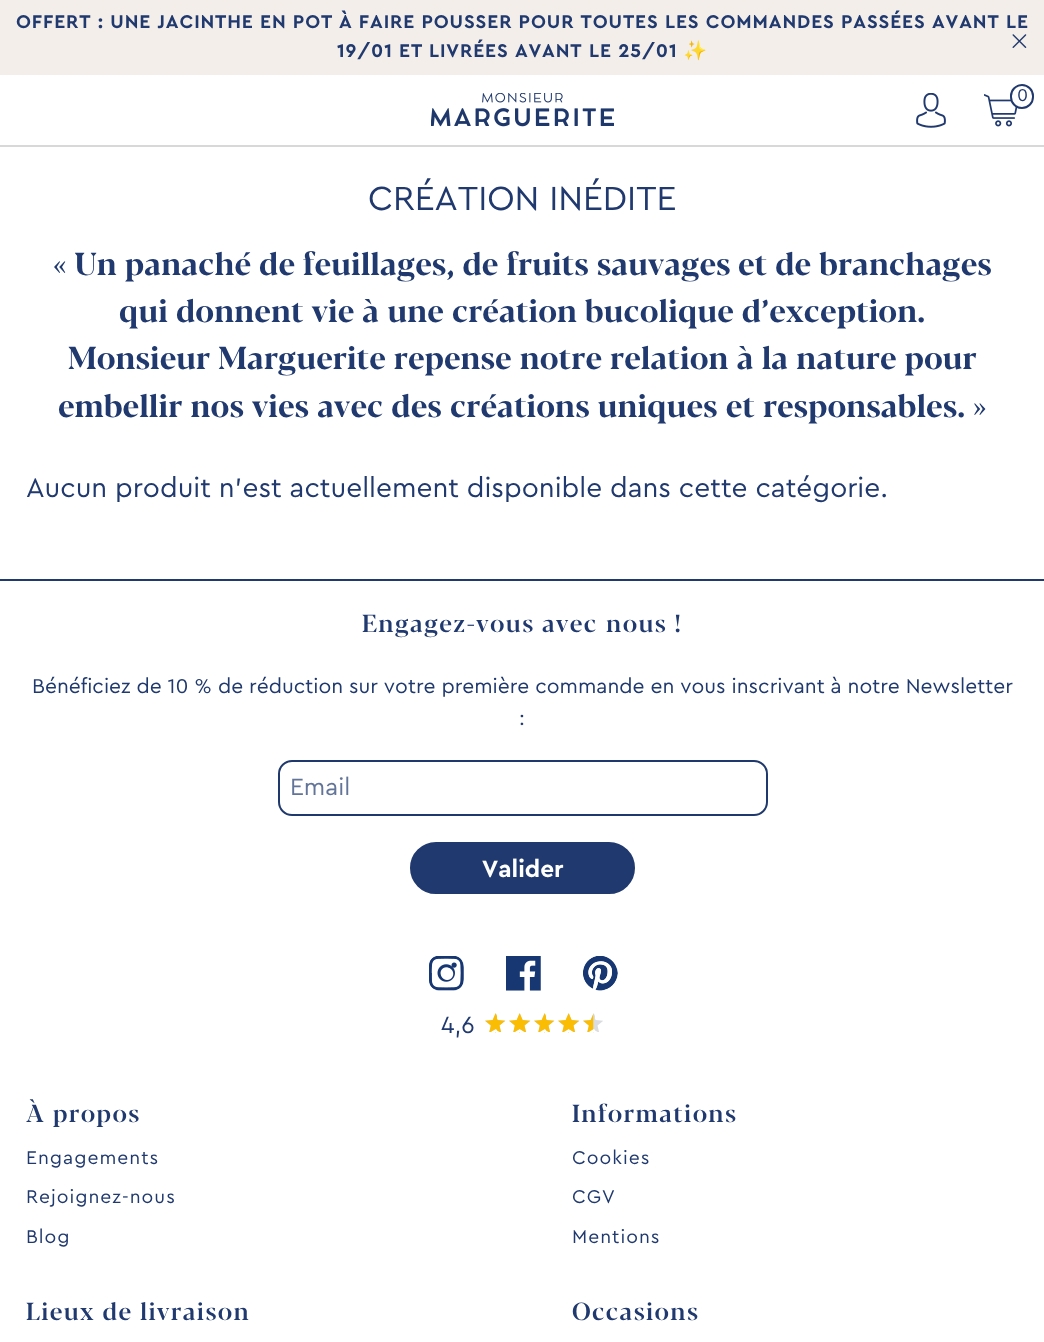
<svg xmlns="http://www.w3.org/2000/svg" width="1044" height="1342">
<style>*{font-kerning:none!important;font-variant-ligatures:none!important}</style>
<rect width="100%" height="100%" fill="#fff"/>
<rect y="145" width="1044" height="2" fill="#d8d8d8"/>
<rect width="1044" height="75" fill="#f3eee9"/>
<text x="16" y="28" style="font-family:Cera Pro;font-size:19.25px;font-weight:bold;letter-spacing:0.88px;fill:#20396e">OFFERT : UNE JACINTHE EN POT</text>
<text x="339" y="28" style="font-family:Cera Pro;font-size:19.25px;font-weight:bold;letter-spacing:0.88px;fill:#20396e">À FAIRE POUSSER POUR TOUTES LES COMMANDES PASSÉES</text>
<text x="932" y="28" style="font-family:Cera Pro;font-size:19.25px;font-weight:bold;letter-spacing:0.88px;fill:#20396e">AVANT</text>
<text x="1006" y="28" style="font-family:Cera Pro;font-size:19.25px;font-weight:bold;letter-spacing:0.88px;fill:#20396e">LE</text>
<text x="337" y="57" style="font-family:Cera Pro;font-size:19.25px;font-weight:bold;letter-spacing:0.88px;fill:#20396e">19/01 ET</text>
<text x="429" y="57" style="font-family:Cera Pro;font-size:19.25px;font-weight:bold;letter-spacing:0.88px;fill:#20396e">LIVRÉES AVANT</text>
<text x="589" y="57" style="font-family:Cera Pro;font-size:19.25px;font-weight:bold;letter-spacing:0.88px;fill:#20396e">LE 25/01</text>
<text x="683" y="57" style="font-family:Noto Color Emoji;font-size:19.25px;font-weight:bold;letter-spacing:0.88px;fill:#20396e">✨</text>
<image x="1012" y="34" width="15" height="14" href="media/1.png"/>
<image x="431" y="93" width="183" height="34" href="media/2.png"/>
<image x="916" y="93" width="30" height="35" href="media/3.png"/>
<image x="984" y="94" width="34" height="33" href="media/4.png"/>
<rect x="1011" y="85" width="22" height="23" rx="11" fill="#fff" stroke="#20396e" stroke-width="2"/>
<text x="1017" y="101" style="font-family:Cera Pro;font-size:18px;fill:#20396e">0</text>
<text x="368" y="210" style="font-family:Cera Pro;font-size:35px;fill:#20396e">CRÉATION INÉDITE</text>
<text x="53" y="275" style="font-family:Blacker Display;font-size:31.5px;font-weight:bold;fill:#20396e">« Un panaché de feuillages, de fruits sauvages</text>
<text x="738" y="275" style="font-family:Blacker Display;font-size:31.5px;font-weight:bold;fill:#20396e">et de branchages</text>
<text x="119" y="322" style="font-family:Blacker Display;font-size:31.5px;font-weight:bold;fill:#20396e">qui donnent vie à une création</text>
<text x="585" y="322" style="font-family:Blacker Display;font-size:31.5px;font-weight:bold;fill:#20396e">bucolique d’exception.</text>
<text x="68" y="369" style="font-family:Blacker Display;font-size:31.5px;font-weight:bold;fill:#20396e">Monsieur Marguerite repense notre</text>
<text x="610" y="369" style="font-family:Blacker Display;font-size:31.5px;font-weight:bold;fill:#20396e">relation à la nature pour</text>
<text x="58" y="417" style="font-family:Blacker Display;font-size:31.5px;font-weight:bold;fill:#20396e">embellir nos vies avec des</text>
<text x="450" y="417" style="font-family:Blacker Display;font-size:31.5px;font-weight:bold;fill:#20396e">créations uniques et responsables.</text>
<text x="973" y="417" style="font-family:Blacker Display;font-size:31.5px;font-weight:bold;fill:#20396e">»</text>
<text x="26" y="497" style="font-family:Cera Pro;font-size:28px;fill:#20396e">Aucun produit n'est actuellement disponible dans cette catégorie.</text>
<rect y="579" width="1044" height="2" fill="#20396e"/>
<text x="362" y="632" style="font-family:Blacker Display;font-size:24.5px;font-weight:500;letter-spacing:1.3px;fill:#20396e">Engagez-vous avec</text>
<text x="606" y="632" style="font-family:Blacker Display;font-size:24.5px;font-weight:500;letter-spacing:1.3px;fill:#20396e">nous !</text>
<text x="32" y="693" style="font-family:Cera Pro;font-size:21px;fill:#20396e">Bénéficiez de 10 % de réduction sur votre première commande en vous inscrivant à notre Newsletter</text>
<text x="519" y="725" style="font-family:Cera Pro;font-size:21px;fill:#20396e">:</text>
<rect x="279" y="761" width="488" height="54" rx="13" fill="none" stroke="#20396d" stroke-width="2"/>
<text x="290" y="795" style="font-family:Cera Pro;font-size:24.5px;fill:#637499">Email</text>
<rect x="411" y="843" width="223" height="50" rx="25" fill="#20396e" stroke="#20396e" stroke-width="2"/>
<text x="482" y="877" style="font-family:Cera Pro;font-size:24.5px;font-weight:bold;fill:#fff">Valider</text>
<image x="429" y="956" width="35" height="35" href="media/5.png"/>
<image x="506" y="956" width="35" height="35" href="media/6.png"/>
<image x="583" y="956" width="35" height="35" href="media/7.png"/>
<text x="441" y="1033" style="font-family:Cera Pro;font-size:24.5px;fill:#20396e">4,6</text>
<image x="485" y="1013" width="118" height="20" href="media/8.png"/>
<image x="485" y="1013" width="109" height="20" href="media/9.png"/>
<text x="26" y="1122" style="font-family:Blacker Display;font-size:24.5px;font-weight:500;letter-spacing:1.3px;fill:#20396e">À propos</text>
<text x="26" y="1164" style="font-family:Cera Pro;font-size:19.25px;letter-spacing:1px;fill:#20396e">Engagements</text>
<text x="26" y="1203" style="font-family:Cera Pro;font-size:19.25px;letter-spacing:1px;fill:#20396e">Rejoignez-nous</text>
<text x="26" y="1243" style="font-family:Cera Pro;font-size:19.25px;letter-spacing:1px;fill:#20396e">Blog</text>
<text x="26" y="1320" style="font-family:Blacker Display;font-size:24.5px;font-weight:500;letter-spacing:1.3px;fill:#20396e">Lieux de livraison</text>
<text x="572" y="1122" style="font-family:Blacker Display;font-size:24.5px;font-weight:500;letter-spacing:1.3px;fill:#20396e">Informations</text>
<text x="572" y="1164" style="font-family:Cera Pro;font-size:19.25px;letter-spacing:1px;fill:#20396e">Cookies</text>
<text x="572" y="1203" style="font-family:Cera Pro;font-size:19.25px;letter-spacing:1px;fill:#20396e">CGV</text>
<text x="572" y="1243" style="font-family:Cera Pro;font-size:19.25px;letter-spacing:1px;fill:#20396e">Mentions</text>
<text x="572" y="1320" style="font-family:Blacker Display;font-size:24.5px;font-weight:500;letter-spacing:1.3px;fill:#20396e">Occasions</text>
</svg>
